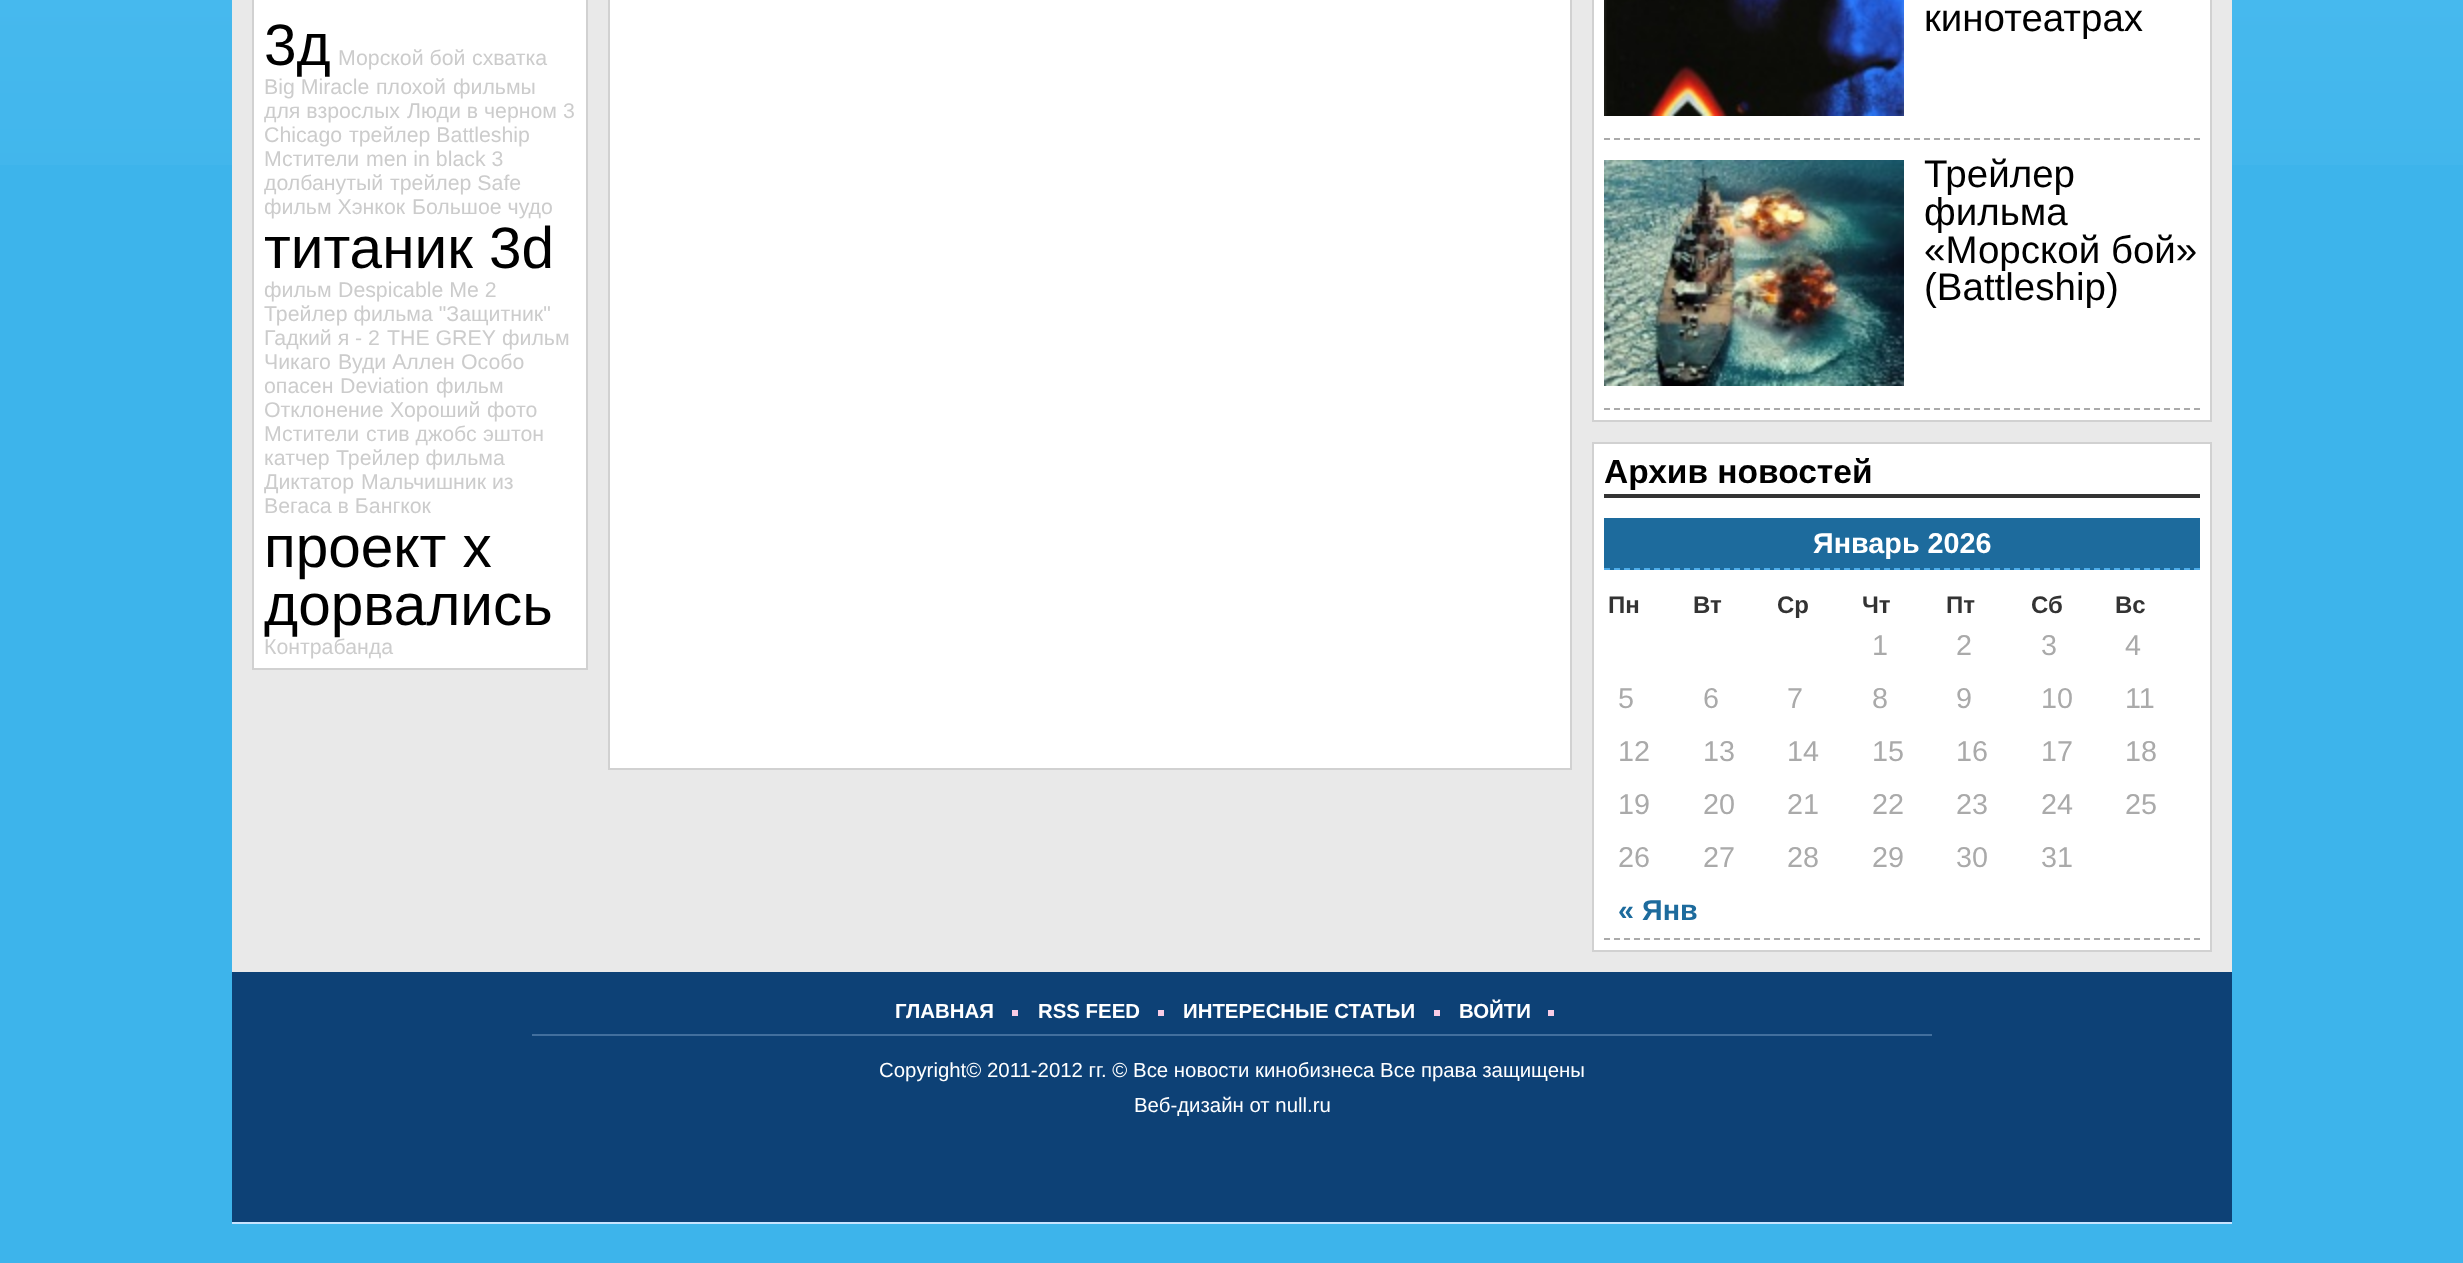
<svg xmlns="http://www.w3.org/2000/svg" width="2463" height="1263">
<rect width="100%" height="100%" fill="#3db4eb"/>
<image x="0" y="0" width="2463" height="165" href="media/1.png"/>
<rect x="232" width="2000" height="972" fill="#e9e9e9"/>
<rect x="253" y="-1" width="334" height="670" fill="#fff" stroke="#d1d1d1" stroke-width="2"/>
<text x="264" y="65" style="font-family:Liberation Sans;font-size:58.5px;fill:#000">3д</text>
<text x="338" y="65" style="font-family:Liberation Sans;font-size:21.3px;fill:#ccc">Морской бой</text>
<text x="472" y="65" style="font-family:Liberation Sans;font-size:21.3px;fill:#ccc">схватка</text>
<text x="264" y="94" style="font-family:Liberation Sans;font-size:21.3px;fill:#ccc">Big Miracle</text>
<text x="376" y="94" style="font-family:Liberation Sans;font-size:21.3px;fill:#ccc">плохой</text>
<text x="453" y="94" style="font-family:Liberation Sans;font-size:21.3px;fill:#ccc">фильмы</text>
<text x="264" y="118" style="font-family:Liberation Sans;font-size:21.3px;fill:#ccc">для взрослых</text>
<text x="407" y="118" style="font-family:Liberation Sans;font-size:21.3px;fill:#ccc">Люди в черном 3</text>
<text x="264" y="142" style="font-family:Liberation Sans;font-size:21.3px;fill:#ccc">Chicago</text>
<text x="349" y="142" style="font-family:Liberation Sans;font-size:21.3px;fill:#ccc">трейлер Battleship</text>
<text x="264" y="166" style="font-family:Liberation Sans;font-size:21.3px;fill:#ccc">Мстители</text>
<text x="366" y="166" style="font-family:Liberation Sans;font-size:21.3px;fill:#ccc">men in black 3</text>
<text x="264" y="190" style="font-family:Liberation Sans;font-size:21.3px;fill:#ccc">долбанутый</text>
<text x="390" y="190" style="font-family:Liberation Sans;font-size:21.3px;fill:#ccc">трейлер Safe</text>
<text x="264" y="214" style="font-family:Liberation Sans;font-size:21.3px;fill:#ccc">фильм Хэнкок</text>
<text x="412" y="214" style="font-family:Liberation Sans;font-size:21.3px;fill:#ccc">Большое чудо</text>
<text x="264" y="268" style="font-family:Liberation Sans;font-size:58.5px;fill:#000">титаник 3d</text>
<text x="264" y="297" style="font-family:Liberation Sans;font-size:21.3px;fill:#ccc">фильм</text>
<text x="338" y="297" style="font-family:Liberation Sans;font-size:21.3px;fill:#ccc">Despicable Me 2</text>
<text x="264" y="321" style="font-family:Liberation Sans;font-size:21.3px;fill:#ccc">Трейлер фильма "Защитник"</text>
<text x="264" y="345" style="font-family:Liberation Sans;font-size:21.3px;fill:#ccc">Гадкий я - 2</text>
<text x="387" y="345" style="font-family:Liberation Sans;font-size:21.3px;fill:#ccc">THE GREY</text>
<text x="502" y="345" style="font-family:Liberation Sans;font-size:21.3px;fill:#ccc">фильм</text>
<text x="264" y="369" style="font-family:Liberation Sans;font-size:21.3px;fill:#ccc">Чикаго</text>
<text x="338" y="369" style="font-family:Liberation Sans;font-size:21.3px;fill:#ccc">Вуди Аллен</text>
<text x="461" y="369" style="font-family:Liberation Sans;font-size:21.3px;fill:#ccc">Особо</text>
<text x="264" y="393" style="font-family:Liberation Sans;font-size:21.3px;fill:#ccc">опасен</text>
<text x="340" y="393" style="font-family:Liberation Sans;font-size:21.3px;fill:#ccc">Deviation</text>
<text x="436" y="393" style="font-family:Liberation Sans;font-size:21.3px;fill:#ccc">фильм</text>
<text x="264" y="417" style="font-family:Liberation Sans;font-size:21.3px;fill:#ccc">Отклонение</text>
<text x="390" y="417" style="font-family:Liberation Sans;font-size:21.3px;fill:#ccc">Хороший</text>
<text x="487" y="417" style="font-family:Liberation Sans;font-size:21.3px;fill:#ccc">фото</text>
<text x="264" y="441" style="font-family:Liberation Sans;font-size:21.3px;fill:#ccc">Мстители</text>
<text x="366" y="441" style="font-family:Liberation Sans;font-size:21.3px;fill:#ccc">стив джобс</text>
<text x="483" y="441" style="font-family:Liberation Sans;font-size:21.3px;fill:#ccc">эштон</text>
<text x="264" y="465" style="font-family:Liberation Sans;font-size:21.3px;fill:#ccc">катчер</text>
<text x="336" y="465" style="font-family:Liberation Sans;font-size:21.3px;fill:#ccc">Трейлер фильма</text>
<text x="264" y="489" style="font-family:Liberation Sans;font-size:21.3px;fill:#ccc">Диктатор</text>
<text x="361" y="489" style="font-family:Liberation Sans;font-size:21.3px;fill:#ccc">Мальчишник из</text>
<text x="264" y="513" style="font-family:Liberation Sans;font-size:21.3px;fill:#ccc">Вегаса в Бангкок</text>
<text x="264" y="567" style="font-family:Liberation Sans;font-size:58.5px;fill:#000">проект х</text>
<text x="264" y="625" style="font-family:Liberation Sans;font-size:58.5px;fill:#000">дорвались</text>
<text x="264" y="654" style="font-family:Liberation Sans;font-size:21.3px;fill:#ccc">Контрабанда</text>
<rect x="609" y="-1" width="962" height="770" fill="#fff" stroke="#d1d1d1" stroke-width="2"/>
<rect x="1593" y="-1" width="618" height="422" fill="#fff" stroke="#d1d1d1" stroke-width="2"/>
<path d="M1604 139h596" fill="none" stroke="#aaa" stroke-width="2" stroke-dasharray="6 4"/>
<image x="1604" y="0" width="300" height="116" href="media/2.png"/>
<text x="1924" y="31" style="font-family:Liberation Sans;font-size:38.5px;fill:#000">кинотеатрах</text>
<path d="M1604 409h596" fill="none" stroke="#aaa" stroke-width="2" stroke-dasharray="6 4"/>
<image x="1604" y="160" width="300" height="226" href="media/3.png"/>
<text x="1924" y="187" style="font-family:Liberation Sans;font-size:38.5px;fill:#000">Трейлер</text>
<text x="1924" y="225" style="font-family:Liberation Sans;font-size:38.5px;fill:#000">фильма</text>
<text x="1924" y="263" style="font-family:Liberation Sans;font-size:38.5px;fill:#000">«Морской бой»</text>
<text x="1924" y="300" style="font-family:Liberation Sans;font-size:38.5px;fill:#000">(Battleship)</text>
<rect x="1593" y="443" width="618" height="508" fill="#fff" stroke="#d1d1d1" stroke-width="2"/>
<rect x="1604" y="494" width="596" height="4" fill="#333"/>
<text x="1604" y="483" style="font-family:Liberation Sans;font-size:33.5px;font-weight:bold;fill:#000">Архив новостей</text>
<path d="M1604 939h596" fill="none" stroke="#aaa" stroke-width="2" stroke-dasharray="6 4"/>
<rect x="1604" y="518" width="596" height="52" fill="#1d6b9d"/>
<path d="M1604 569h596" fill="none" stroke="#4eadea" stroke-width="2" stroke-dasharray="6 4"/>
<text x="1813" y="553" style="font-family:Liberation Sans;font-size:28.75px;font-weight:bold;fill:#fff">Январь 2026</text>
<text x="1608" y="613" style="font-family:Liberation Sans;font-size:24px;font-weight:bold;fill:#333">Пн</text>
<text x="1693" y="613" style="font-family:Liberation Sans;font-size:24px;font-weight:bold;fill:#333">Вт</text>
<text x="1777" y="613" style="font-family:Liberation Sans;font-size:24px;font-weight:bold;fill:#333">Ср</text>
<text x="1862" y="613" style="font-family:Liberation Sans;font-size:24px;font-weight:bold;fill:#333">Чт</text>
<text x="1946" y="613" style="font-family:Liberation Sans;font-size:24px;font-weight:bold;fill:#333">Пт</text>
<text x="2031" y="613" style="font-family:Liberation Sans;font-size:24px;font-weight:bold;fill:#333">Сб</text>
<text x="2115" y="613" style="font-family:Liberation Sans;font-size:24px;font-weight:bold;fill:#333">Вс</text>
<text x="1872" y="655" style="font-family:Liberation Sans;font-size:28.75px;fill:#aaa">1</text>
<text x="1956" y="655" style="font-family:Liberation Sans;font-size:28.75px;fill:#aaa">2</text>
<text x="2041" y="655" style="font-family:Liberation Sans;font-size:28.75px;fill:#aaa">3</text>
<text x="2125" y="655" style="font-family:Liberation Sans;font-size:28.75px;fill:#aaa">4</text>
<text x="1618" y="708" style="font-family:Liberation Sans;font-size:28.75px;fill:#aaa">5</text>
<text x="1703" y="708" style="font-family:Liberation Sans;font-size:28.75px;fill:#aaa">6</text>
<text x="1787" y="708" style="font-family:Liberation Sans;font-size:28.75px;fill:#aaa">7</text>
<text x="1872" y="708" style="font-family:Liberation Sans;font-size:28.75px;fill:#aaa">8</text>
<text x="1956" y="708" style="font-family:Liberation Sans;font-size:28.75px;fill:#aaa">9</text>
<text x="2041" y="708" style="font-family:Liberation Sans;font-size:28.75px;fill:#aaa">10</text>
<text x="2125" y="708" style="font-family:Liberation Sans;font-size:28.75px;fill:#aaa">11</text>
<text x="1618" y="761" style="font-family:Liberation Sans;font-size:28.75px;fill:#aaa">12</text>
<text x="1703" y="761" style="font-family:Liberation Sans;font-size:28.75px;fill:#aaa">13</text>
<text x="1787" y="761" style="font-family:Liberation Sans;font-size:28.75px;fill:#aaa">14</text>
<text x="1872" y="761" style="font-family:Liberation Sans;font-size:28.75px;fill:#aaa">15</text>
<text x="1956" y="761" style="font-family:Liberation Sans;font-size:28.75px;fill:#aaa">16</text>
<text x="2041" y="761" style="font-family:Liberation Sans;font-size:28.75px;fill:#aaa">17</text>
<text x="2125" y="761" style="font-family:Liberation Sans;font-size:28.75px;fill:#aaa">18</text>
<text x="1618" y="814" style="font-family:Liberation Sans;font-size:28.75px;fill:#aaa">19</text>
<text x="1703" y="814" style="font-family:Liberation Sans;font-size:28.75px;fill:#aaa">20</text>
<text x="1787" y="814" style="font-family:Liberation Sans;font-size:28.75px;fill:#aaa">21</text>
<text x="1872" y="814" style="font-family:Liberation Sans;font-size:28.75px;fill:#aaa">22</text>
<text x="1956" y="814" style="font-family:Liberation Sans;font-size:28.75px;fill:#aaa">23</text>
<text x="2041" y="814" style="font-family:Liberation Sans;font-size:28.75px;fill:#aaa">24</text>
<text x="2125" y="814" style="font-family:Liberation Sans;font-size:28.75px;fill:#aaa">25</text>
<text x="1618" y="867" style="font-family:Liberation Sans;font-size:28.75px;fill:#aaa">26</text>
<text x="1703" y="867" style="font-family:Liberation Sans;font-size:28.75px;fill:#aaa">27</text>
<text x="1787" y="867" style="font-family:Liberation Sans;font-size:28.75px;fill:#aaa">28</text>
<text x="1872" y="867" style="font-family:Liberation Sans;font-size:28.75px;fill:#aaa">29</text>
<text x="1956" y="867" style="font-family:Liberation Sans;font-size:28.75px;fill:#aaa">30</text>
<text x="2041" y="867" style="font-family:Liberation Sans;font-size:28.75px;fill:#aaa">31</text>
<text x="1618" y="920" style="font-family:Liberation Sans;font-size:28.75px;font-weight:bold;fill:#1d6b9d">« Янв</text>
<rect x="232" y="972" width="2000" height="250" fill="#0d4176"/>
<rect x="232" y="1222" width="2000" height="2" fill="#c7e3ff"/>
<text x="895" y="1018" style="font-family:Liberation Sans;font-size:20.4px;font-weight:bold;fill:#fff">ГЛАВНАЯ</text>
<rect x="1012" y="1010" width="6" height="6" fill="#f8cce6"/>
<text x="1038" y="1018" style="font-family:Liberation Sans;font-size:20.4px;font-weight:bold;fill:#fff">RSS FEED</text>
<rect x="1158" y="1010" width="6" height="6" fill="#f8cce6"/>
<text x="1183" y="1018" style="font-family:Liberation Sans;font-size:20.4px;font-weight:bold;fill:#fff">ИНТЕРЕСНЫЕ СТАТЬИ</text>
<rect x="1434" y="1010" width="6" height="6" fill="#f8cce6"/>
<text x="1459" y="1018" style="font-family:Liberation Sans;font-size:20.4px;font-weight:bold;fill:#fff">ВОЙТИ</text>
<rect x="1548" y="1010" width="6" height="6" fill="#f8cce6"/>
<rect x="532" y="1034" width="1400" height="2" fill="#426f9d"/>
<text x="879" y="1077" style="font-family:Liberation Sans;font-size:20.4px;fill:#fff">Copyright© 2011-2012 гг. © Все новости кинобизнеса Все права защищены</text>
<text x="1134" y="1112" style="font-family:Liberation Sans;font-size:20.4px;fill:#fff">Веб-дизайн от null.ru</text>
</svg>
